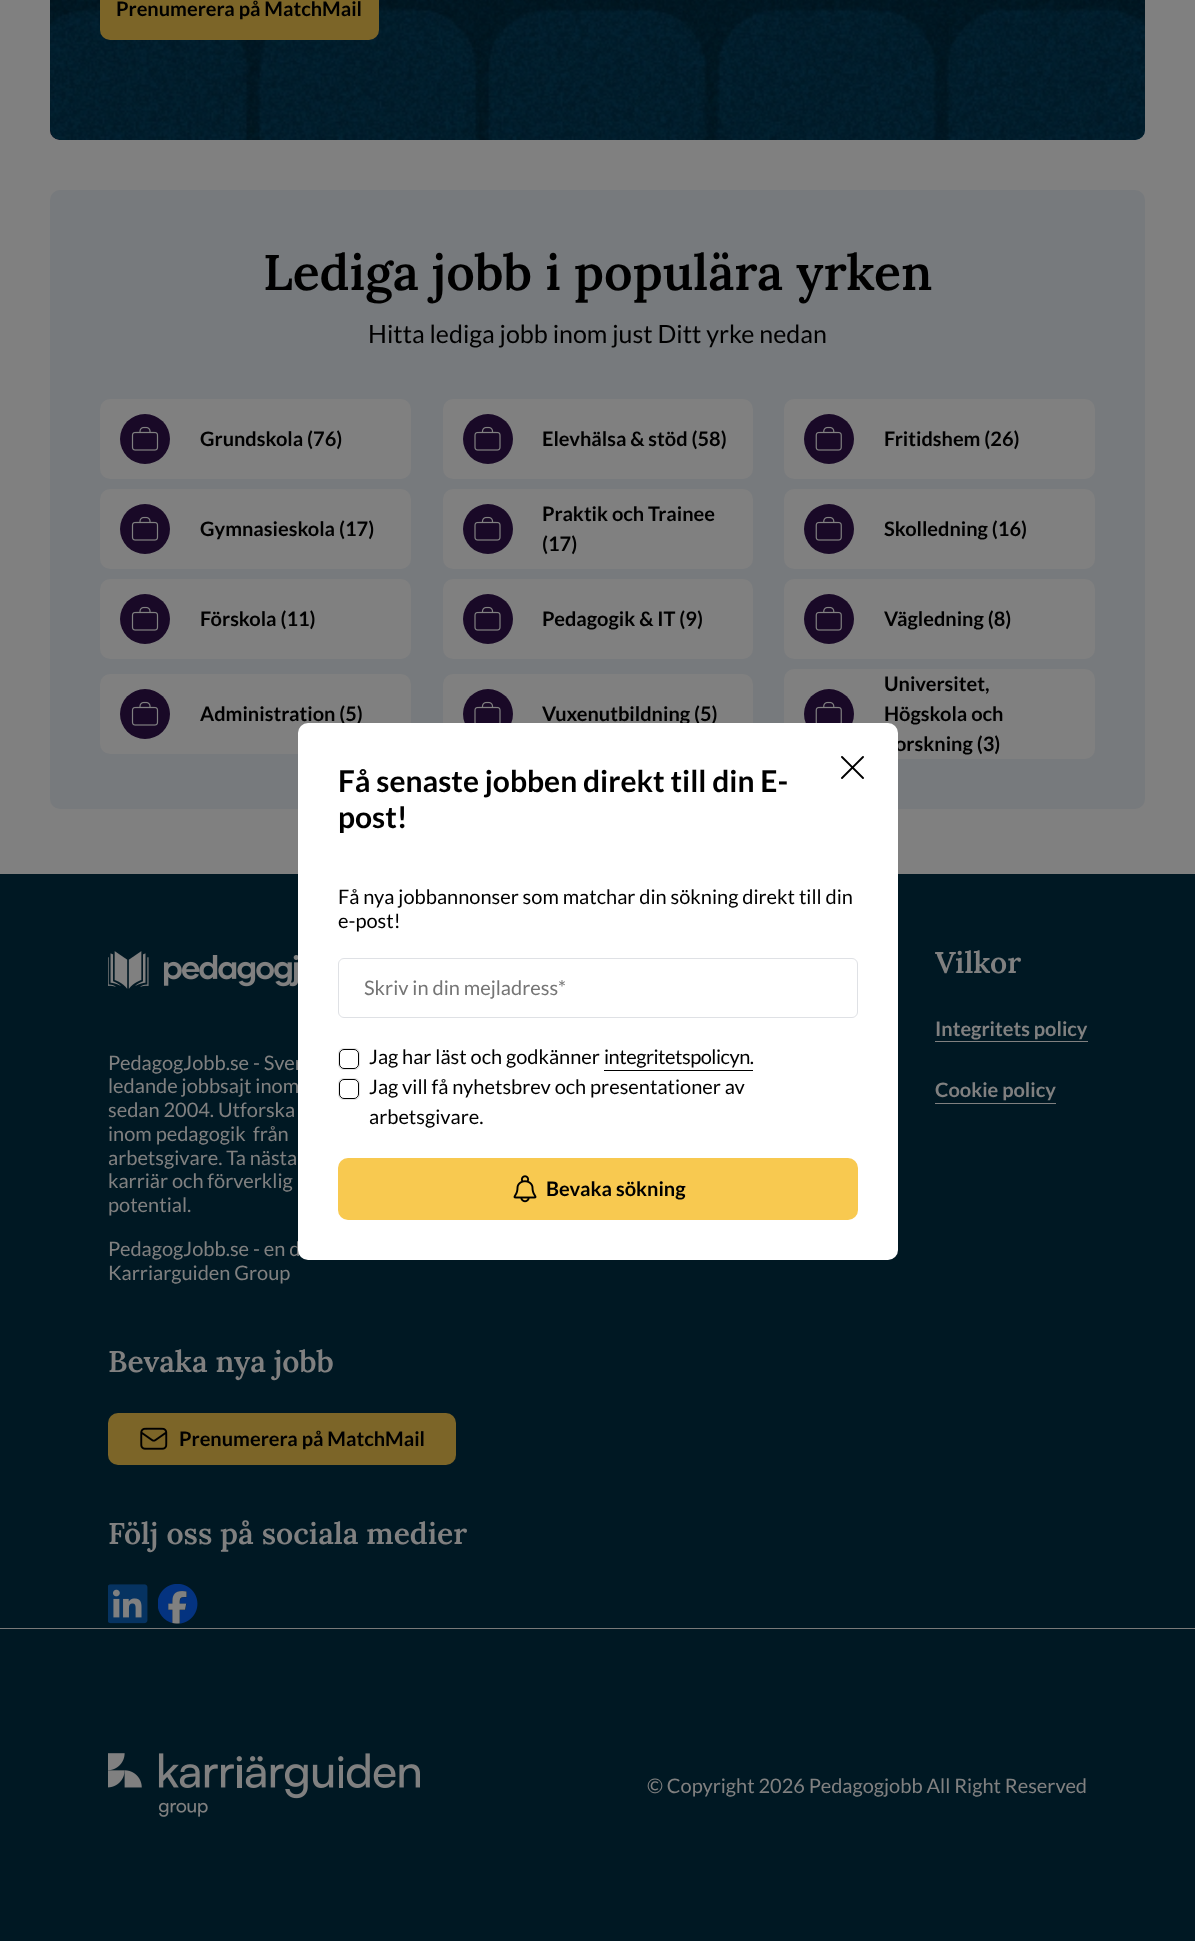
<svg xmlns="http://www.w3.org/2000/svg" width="1195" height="1941">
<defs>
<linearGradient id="g1" gradientUnits="userSpaceOnUse" x1="1176" y1="-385" x2="19" y2="-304"><stop offset="0" stop-color="#032b40"/><stop offset="1" stop-color="#11061c"/></linearGradient>
</defs>
<rect width="100%" height="100%" fill="#808080"/>
<rect x="50" y="-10" width="1095" height="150" rx="10" fill="url(#g1)"/>
<image x="50" y="0" width="1095" height="140" href="media/1.png"/>
<rect x="100" y="-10" width="279" height="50" rx="10" fill="#7c6528"/>
<text x="116" y="16" style="font-family:Lato;font-size:20px;font-weight:bold;fill:#000">Prenumerera på MatchMail</text>
<rect x="50" y="190" width="1095" height="619" rx="10" fill="#777a7d"/>
<text x="263" y="290" style="font-family:'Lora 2';font-size:50px;font-weight:600;fill:#000">Lediga jobb i populära yrken</text>
<text x="368" y="343" style="font-family:Lato;font-size:25px;fill:#000">Hitta lediga jobb inom just Ditt yrke nedan</text>
<rect x="100" y="399" width="311" height="80" rx="10" fill="#808080"/>
<circle cx="145" cy="439" r="25" fill="#190927"/>
<image x="131" y="426" width="28" height="25" href="media/2.png"/>
<text x="200" y="446" style="font-family:Lato;font-size:20px;font-weight:bold;fill:#000">Grundskola (76)</text>
<rect x="443" y="399" width="310" height="80" rx="10" fill="#808080"/>
<circle cx="488" cy="439" r="25" fill="#190927"/>
<image x="474" y="426" width="27" height="25" href="media/3.png"/>
<text x="542" y="446" style="font-family:Lato;font-size:20px;font-weight:bold;fill:#000">Elevhälsa &amp; stöd (58)</text>
<rect x="784" y="399" width="311" height="80" rx="10" fill="#808080"/>
<circle cx="829" cy="439" r="25" fill="#190927"/>
<image x="815" y="426" width="27" height="25" href="media/4.png"/>
<text x="884" y="446" style="font-family:Lato;font-size:20px;font-weight:bold;fill:#000">Fritidshem (26)</text>
<rect x="100" y="489" width="311" height="80" rx="10" fill="#808080"/>
<circle cx="145" cy="529" r="25" fill="#190927"/>
<image x="131" y="516" width="28" height="25" href="media/2.png"/>
<text x="200" y="536" style="font-family:Lato;font-size:20px;font-weight:bold;fill:#000">Gymnasieskola (17)</text>
<rect x="443" y="489" width="310" height="80" rx="10" fill="#808080"/>
<circle cx="488" cy="529" r="25" fill="#190927"/>
<image x="474" y="516" width="27" height="25" href="media/3.png"/>
<text x="542" y="521" style="font-family:Lato;font-size:20px;font-weight:bold;fill:#000">Praktik och Trainee</text>
<text x="542" y="551" style="font-family:Lato;font-size:20px;font-weight:bold;fill:#000">(17)</text>
<rect x="784" y="489" width="311" height="80" rx="10" fill="#808080"/>
<circle cx="829" cy="529" r="25" fill="#190927"/>
<image x="815" y="516" width="27" height="25" href="media/4.png"/>
<text x="884" y="536" style="font-family:Lato;font-size:20px;font-weight:bold;fill:#000">Skolledning (16)</text>
<rect x="100" y="579" width="311" height="80" rx="10" fill="#808080"/>
<circle cx="145" cy="619" r="25" fill="#190927"/>
<image x="131" y="606" width="28" height="25" href="media/2.png"/>
<text x="200" y="626" style="font-family:Lato;font-size:20px;font-weight:bold;fill:#000">Förskola (11)</text>
<rect x="443" y="579" width="310" height="80" rx="10" fill="#808080"/>
<circle cx="488" cy="619" r="25" fill="#190927"/>
<image x="474" y="606" width="27" height="25" href="media/3.png"/>
<text x="542" y="626" style="font-family:Lato;font-size:20px;font-weight:bold;fill:#000">Pedagogik &amp; IT (9)</text>
<rect x="784" y="579" width="311" height="80" rx="10" fill="#808080"/>
<circle cx="829" cy="619" r="25" fill="#190927"/>
<image x="815" y="606" width="27" height="25" href="media/4.png"/>
<text x="884" y="626" style="font-family:Lato;font-size:20px;font-weight:bold;fill:#000">Vägledning (8)</text>
<rect x="100" y="674" width="311" height="80" rx="10" fill="#808080"/>
<circle cx="145" cy="714" r="25" fill="#190927"/>
<image x="131" y="701" width="28" height="25" href="media/2.png"/>
<text x="200" y="721" style="font-family:Lato;font-size:20px;font-weight:bold;fill:#000">Administration (5)</text>
<rect x="443" y="674" width="310" height="80" rx="10" fill="#808080"/>
<circle cx="488" cy="714" r="25" fill="#190927"/>
<image x="474" y="701" width="27" height="22" href="media/5.png"/>
<text x="542" y="721" style="font-family:Lato;font-size:20px;font-weight:bold;fill:#000">Vuxenutbildning (5)</text>
<rect x="784" y="669" width="311" height="90" rx="10" fill="#808080"/>
<circle cx="829" cy="714" r="25" fill="#190927"/>
<image x="815" y="701" width="27" height="22" href="media/6.png"/>
<text x="884" y="691" style="font-family:Lato;font-size:20px;font-weight:bold;fill:#000">Universitet,</text>
<text x="884" y="721" style="font-family:Lato;font-size:20px;font-weight:bold;fill:#000">Högskola och</text>
<text x="895" y="751" style="font-family:Lato;font-size:20px;font-weight:bold;fill:#000">orskning (3)</text>
<rect y="874" width="1195" height="1067" fill="#001823"/>
<text x="108" y="1070" style="font-family:Lato;font-size:20px;fill:#808080">PedagogJobb.se - Sver</text>
<text x="108" y="1256" style="font-family:Lato;font-size:20px;fill:#808080">PedagogJobb.se - en d</text>
<rect x="298" y="723" width="600" height="537" rx="10" fill="#fff"/>
<text x="338" y="792" style="font-family:Lato;font-size:30px;font-weight:bold;fill:#000">Få senaste jobben direkt till din E-</text>
<text x="338" y="828" style="font-family:Lato;font-size:30px;font-weight:bold;fill:#000">post!</text>
<text x="338" y="904" style="font-family:Lato;font-size:20px;fill:#000">Få nya jobbannonser som matchar din sökning direkt till din</text>
<text x="338" y="928" style="font-family:Lato;font-size:20px;fill:#000">e-post!</text>
<rect x="338.5" y="958.5" width="519" height="59" rx="5.5" fill="none" stroke="#dfe1e5"/>
<text x="364" y="995" style="font-family:Lato;font-size:20px;fill:#757575">Skriv in din mejladress*</text>
<rect x="338.5" y="1048.5" width="21" height="21" rx="4.5" fill="none" stroke="#e5e5e5"/>
<rect x="339.5" y="1049.5" width="19" height="19" rx="4.5" fill="#fff" stroke="#000"/>
<text x="369" y="1064" style="font-family:Lato;font-size:20px;fill:#000">Jag har läst och godkänner</text>
<text x="604" y="1064" style="font-family:Lato;font-size:20px;letter-spacing:-0.5px;fill:#000">integritetspolicyn.</text>
<rect x="604" y="1070" width="149" height="1" fill="#000"/>
<rect x="338.5" y="1078.5" width="21" height="21" rx="4.5" fill="none" stroke="#e5e5e5"/>
<rect x="339.5" y="1079.5" width="19" height="19" rx="4.5" fill="#fff" stroke="#000"/>
<text x="369" y="1094" style="font-family:Lato;font-size:20px;fill:#000">Jag vill få nyhetsbrev och presentationer av</text>
<text x="369" y="1124" style="font-family:Lato;font-size:20px;fill:#000">arbetsgivare.</text>
<rect x="338" y="1158" width="520" height="62" rx="10" fill="#f8c950"/>
<image x="513" y="1175" width="24" height="28" href="media/7.png"/>
<text x="546" y="1196" style="font-family:Lato;font-size:20px;font-weight:bold;fill:#000">Bevaka sökning</text>
<path d="M842 757l21 21m-21 0l21-21" fill="none" stroke="#000" stroke-width="1.9" stroke-linecap="round"/>
<text x="935" y="973" style="font-family:Lora;font-size:30px;font-weight:600;fill:#808080">Vilkor</text>
<text x="935" y="1036" style="font-family:Lato;font-size:20px;font-weight:bold;fill:#808080">Integritets policy</text>
<rect x="935" y="1041" width="153" height="1" fill="#808080"/>
<text x="935" y="1097" style="font-family:Lato;font-size:20px;font-weight:bold;fill:#808080">Cookie policy</text>
<rect x="935" y="1103" width="121" height="1" fill="#808080"/>
<image x="108" y="951" width="190" height="38" href="media/8.png"/>
<text x="108" y="1093" style="font-family:Lato;font-size:20px;fill:#808080">ledande jobbsajt inom</text>
<text x="108" y="1117" style="font-family:Lato;font-size:20px;fill:#808080">sedan 2004. Utforska</text>
<text x="108" y="1141" style="font-family:Lato;font-size:20px;fill:#808080">inom pedagogik</text>
<text x="253" y="1141" style="font-family:Lato;font-size:20px;fill:#808080">från</text>
<text x="108" y="1165" style="font-family:Lato;font-size:20px;fill:#808080">arbetsgivare. Ta nästa</text>
<text x="108" y="1188" style="font-family:Lato;font-size:20px;fill:#808080">karriär och förverklig</text>
<text x="108" y="1212" style="font-family:Lato;font-size:20px;fill:#808080">potential.</text>
<text x="108" y="1280" style="font-family:Lato;font-size:20px;fill:#808080">Karriarguiden Group</text>
<text x="108" y="1372" style="font-family:Lora;font-size:30px;font-weight:600;fill:#808080">Bevaka nya jobb</text>
<rect x="108" y="1413" width="348" height="52" rx="10" fill="#7c6528"/>
<image x="140" y="1427" width="28" height="23" href="media/9.png"/>
<text x="179" y="1446" style="font-family:Lato;font-size:20px;font-weight:bold;fill:#000">Prenumerera på MatchMail</text>
<text x="108" y="1544" style="font-family:Lora;font-size:30px;font-weight:600;fill:#808080">Följ oss på sociala medier</text>
<image x="108" y="1584" width="40" height="40" href="media/10.png"/>
<image x="158" y="1584" width="40" height="40" href="media/11.png"/>
<rect y="1628" width="1195" height="1" fill="#797979"/>
<image x="108" y="1753" width="312" height="64" href="media/12.png"/>
<text x="647" y="1793" style="font-family:Lato;font-size:20px;fill:#808080">© Copyright 2026 Pedagogjobb All Right Reserved</text>
</svg>
